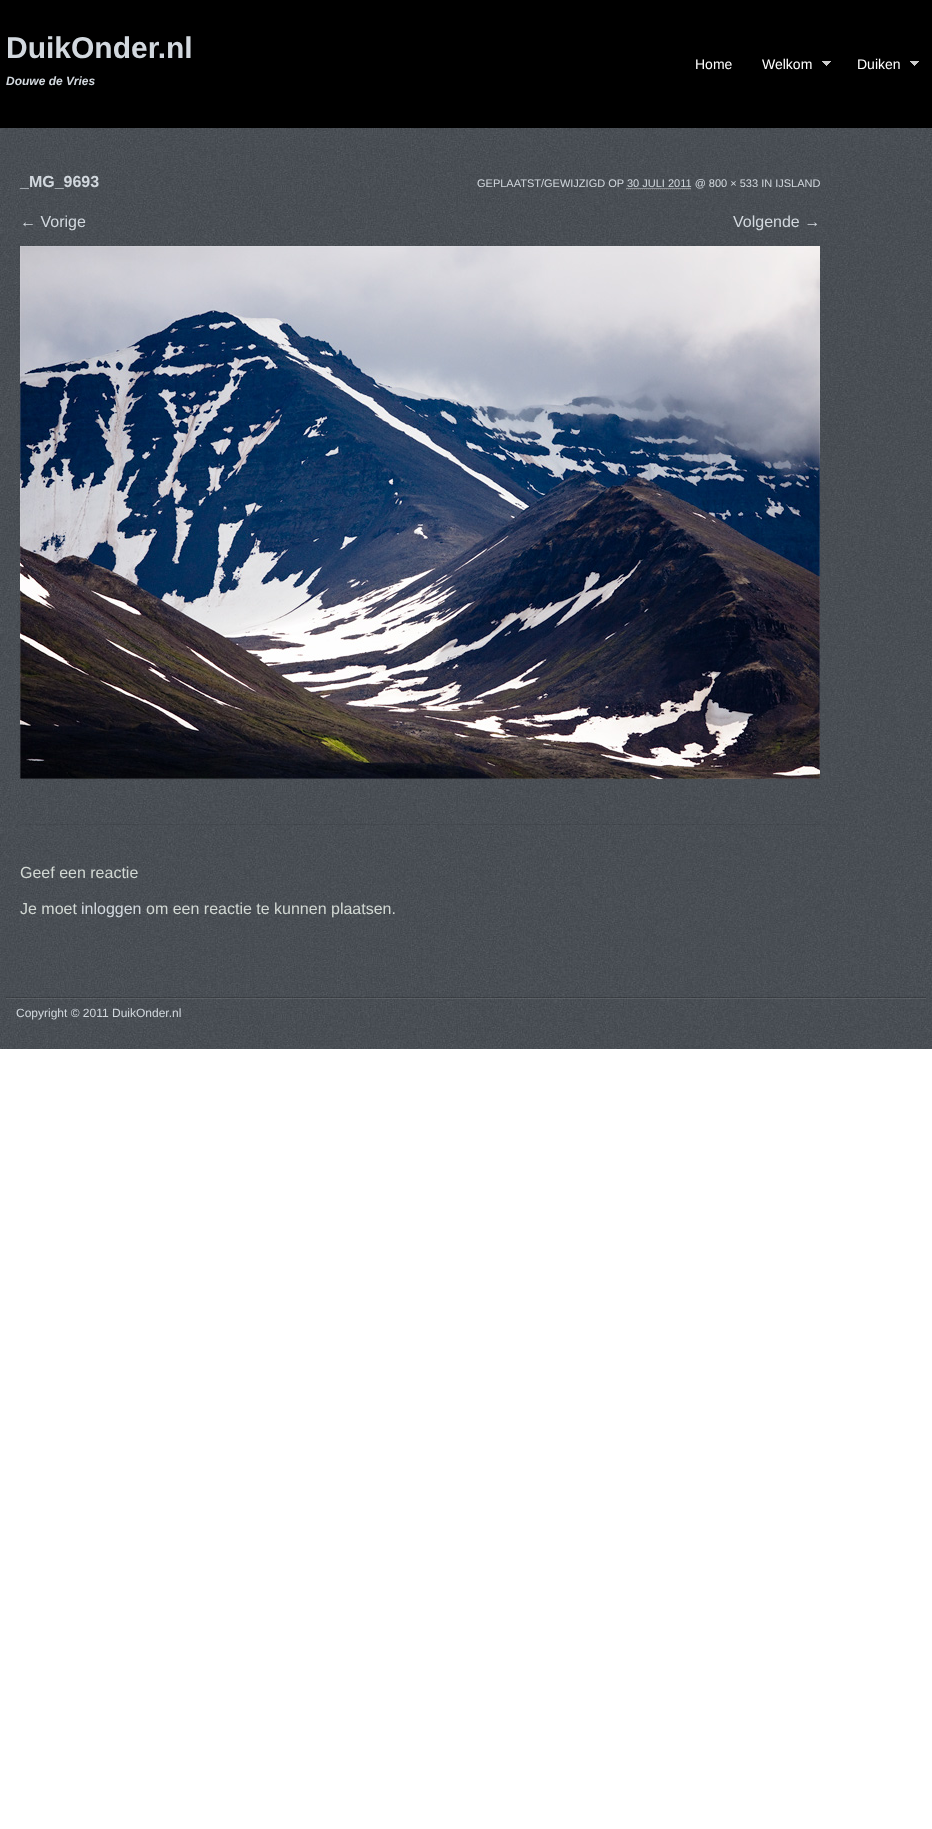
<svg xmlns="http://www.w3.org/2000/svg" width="932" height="1829">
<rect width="100%" height="100%" fill="#fff"/>
<rect width="932" height="128" fill="#000"/>
<text x="6" y="58" style="font-family:Liberation Sans;font-size:30px;font-weight:bold;fill:#d2d8de">DuikOnder.nl</text>
<text x="6" y="85" style="font-family:Liberation Sans;font-size:12px;font-weight:bold;font-style:italic;fill:#d2d8de">Douwe de Vries</text>
<text x="695" y="69" style="font-family:Liberation Sans;font-size:14px;fill:#fff">Home</text>
<text x="762" y="69" style="font-family:Liberation Sans;font-size:14px;fill:#fff">Welkom</text>
<image x="822" y="61" width="9" height="5" href="media/1.png"/>
<text x="857" y="69" style="font-family:Liberation Sans;font-size:14px;fill:#fff">Duiken</text>
<image x="910" y="61" width="9" height="5" href="media/1.png"/>
<image x="0" y="128" width="932" height="829" href="media/2.png"/>
<text x="20" y="187" style="font-family:Liberation Sans;font-size:16px;font-weight:bold;fill:#d2d8de">_MG_9693</text>
<text x="477" y="187" style="font-family:Liberation Sans;font-size:11px;fill:#d2d8de">GEPLAATST/GEWIJZIGD OP 30 JULI 2011 @ 800 × 533 IN IJSLAND</text>
<path d="M626.5 188.5h64.5" fill="none" stroke="#d2d8de" stroke-dasharray="1 1"/>
<path d="M626 189.5h65" fill="none" stroke="#666" stroke-dasharray="1 1"/>
<text x="20" y="227" style="font-family:Liberation Sans;font-size:16px;fill:#d2d8de">← Vorige</text>
<text x="733" y="227" style="font-family:Liberation Sans;font-size:16px;fill:#d2d8de">Volgende →</text>
<image x="20" y="246" width="800" height="533" href="media/3.png"/>
<rect x="20" y="824" width="800" height="1" fill="#00000014"/>
<text x="20" y="878" style="font-family:Liberation Sans;font-size:16px;fill:#d2d8d3">Geef een reactie</text>
<text x="20" y="914" style="font-family:Liberation Sans;font-size:16px;fill:#d2d8d3">Je moet</text>
<text x="81" y="914" style="font-family:Liberation Sans;font-size:16px;fill:#d2d8de">inloggen</text>
<text x="146" y="914" style="font-family:Liberation Sans;font-size:16px;fill:#d2d8d3">om een reactie te kunnen plaatsen.</text>
<image x="0" y="957" width="932" height="92" href="media/4.png"/>
<image x="6" y="997" width="920" height="2" href="media/5.png"/>
<text x="16" y="1017" style="font-family:Liberation Sans;font-size:12px;fill:#d2d8de">Copyright © 2011 DuikOnder.nl</text>
</svg>
